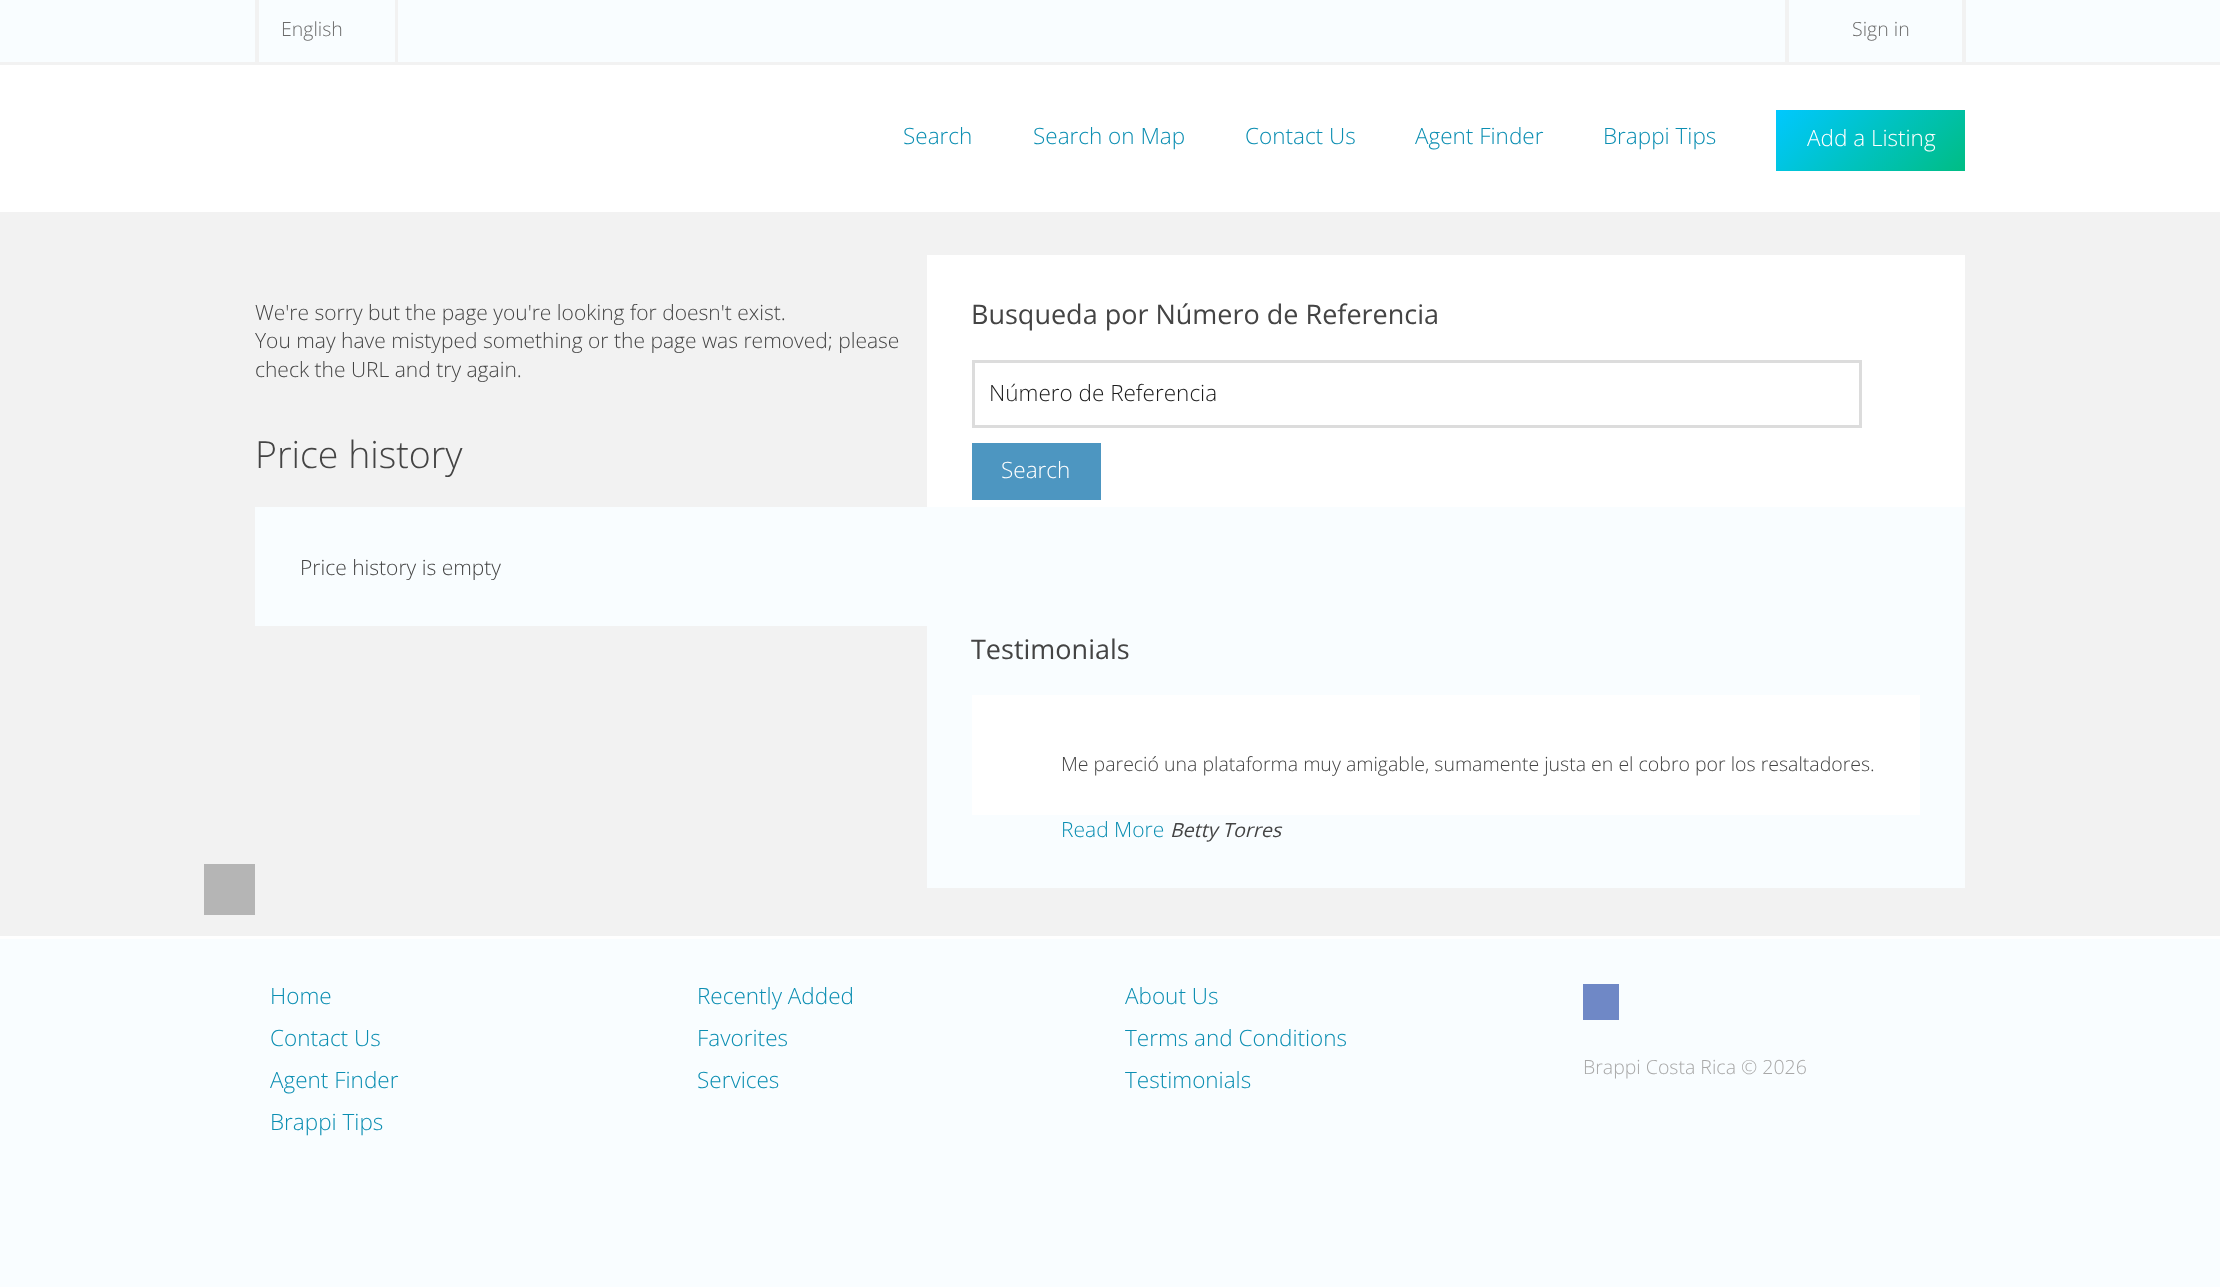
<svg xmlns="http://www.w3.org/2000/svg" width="2220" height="1287">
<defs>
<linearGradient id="g1" gradientUnits="userSpaceOnUse" x1="1808" y1="78" x2="1933" y2="203"><stop offset="0" stop-color="#00c8ff"/><stop offset="1" stop-color="#00bd84"/></linearGradient>
</defs>
<rect width="100%" height="100%" fill="#f2f2f2"/>
<rect y="65" width="2220" height="147" fill="#fff"/>
<rect width="2220" height="62" fill="#f9fdff"/>
<rect x="395" width="3" height="62" fill="#f2f2f2"/>
<rect x="255" width="4" height="62" fill="#f2f2f2"/>
<text x="281" y="36" style="font-family:Open Sans;font-size:19.5px;font-weight:300;fill:#6b6b6b">English</text>
<rect x="1962" width="4" height="62" fill="#f2f2f2"/>
<rect x="1785" width="4" height="62" fill="#f2f2f2"/>
<text x="1852" y="36" style="font-family:Open Sans;font-size:19.5px;font-weight:300;fill:#6b6b6b">Sign in</text>
<text x="903" y="144" style="font-family:Open Sans;font-size:22.5px;font-weight:300;fill:#0b8eb2">Search</text>
<text x="1033" y="144" style="font-family:Open Sans;font-size:22.5px;font-weight:300;fill:#0b8eb2">Search on Map</text>
<text x="1245" y="144" style="font-family:Open Sans;font-size:22.5px;font-weight:300;fill:#0b8eb2">Contact Us</text>
<text x="1415" y="144" style="font-family:Open Sans;font-size:22.5px;font-weight:300;fill:#0b8eb2">Agent Finder</text>
<text x="1603" y="144" style="font-family:Open Sans;font-size:22.5px;font-weight:300;fill:#0b8eb2">Brappi Tips</text>
<rect x="1776" y="110" width="189" height="61" fill="url(#g1)"/>
<text x="1807" y="146" style="font-family:Open Sans;font-size:22.5px;font-weight:300;fill:#fff">Add a Listing</text>
<text x="255" y="320" style="font-family:Open Sans;font-size:21px;font-weight:300;fill:#444">We're sorry but the page you're looking for doesn't exist.</text>
<text x="255" y="348" style="font-family:Open Sans;font-size:21px;font-weight:300;fill:#444">You may have mistyped something or the page was removed; please</text>
<text x="255" y="377" style="font-family:Open Sans;font-size:21px;font-weight:300;fill:#444">check the URL and try again.</text>
<text x="255" y="468" style="font-family:Open Sans;font-size:37.5px;font-weight:300;fill:#444">Price history</text>
<rect x="255" y="507" width="1710" height="119" fill="#f9fdff"/>
<text x="300" y="575" style="font-family:Open Sans;font-size:21px;font-weight:300;fill:#444">Price history is empty</text>
<rect x="927" y="255" width="1038" height="252" fill="#fff"/>
<text x="971" y="324" style="font-family:Open Sans;font-size:27px;fill:#444">Busqueda por Número de Referencia</text>
<rect x="973.5" y="361.5" width="887" height="65" fill="none" stroke="#dcdcdc" stroke-width="3"/>
<text x="989" y="401" style="font-family:Open Sans;font-size:22.5px;font-weight:300;fill:#1b1b1b">Número de Referencia</text>
<rect x="972" y="443" width="129" height="57" fill="#4d96c1"/>
<text x="1001" y="478" style="font-family:Open Sans;font-size:22.5px;font-weight:300;fill:#fff">Search</text>
<rect x="927" y="626" width="1038" height="262" fill="#f9fdff"/>
<text x="971" y="659" style="font-family:Open Sans;font-size:27px;fill:#444">Testimonials</text>
<rect x="972" y="695" width="948" height="120" fill="#fff"/>
<text x="1061" y="771" style="font-family:Open Sans;font-size:19.5px;font-weight:300;fill:#444">Me pareció una plataforma muy amigable, sumamente justa en el cobro por los resaltadores.</text>
<text x="1061" y="837" style="font-family:Open Sans;font-size:21px;font-weight:300;fill:#0b8eb2">Read More</text>
<text x="1170" y="837" style="font-family:Open Sans;font-size:19.5px;font-style:italic;fill:#444">Betty Torres</text>
<rect y="939" width="2220" height="348" fill="#f9fdff"/>
<rect y="936" width="2220" height="3" fill="#fff"/>
<rect x="204" y="864" width="51" height="51" fill="#b5b5b5"/>
<text x="270" y="1004" style="font-family:Open Sans;font-size:22.5px;font-weight:300;fill:#0b8eb2">Home</text>
<text x="697" y="1004" style="font-family:Open Sans;font-size:22.5px;font-weight:300;fill:#0b8eb2">Recently Added</text>
<text x="1125" y="1004" style="font-family:Open Sans;font-size:22.5px;font-weight:300;fill:#0b8eb2">About Us</text>
<text x="270" y="1046" style="font-family:Open Sans;font-size:22.5px;font-weight:300;fill:#0b8eb2">Contact Us</text>
<text x="697" y="1046" style="font-family:Open Sans;font-size:22.5px;font-weight:300;fill:#0b8eb2">Favorites</text>
<text x="1125" y="1046" style="font-family:Open Sans;font-size:22.5px;font-weight:300;fill:#0b8eb2">Terms and Conditions</text>
<text x="270" y="1088" style="font-family:Open Sans;font-size:22.5px;font-weight:300;fill:#0b8eb2">Agent Finder</text>
<text x="697" y="1088" style="font-family:Open Sans;font-size:22.5px;font-weight:300;fill:#0b8eb2">Services</text>
<text x="1125" y="1088" style="font-family:Open Sans;font-size:22.5px;font-weight:300;fill:#0b8eb2">Testimonials</text>
<text x="270" y="1130" style="font-family:Open Sans;font-size:22.5px;font-weight:300;fill:#0b8eb2">Brappi Tips</text>
<rect x="1583" y="984" width="36" height="36" fill="#6f88c6"/>
<text x="1583" y="1074" style="font-family:Open Sans;font-size:19.5px;font-weight:300;fill:#a8a8a8">Brappi Costa Rica © 2026</text>
</svg>
